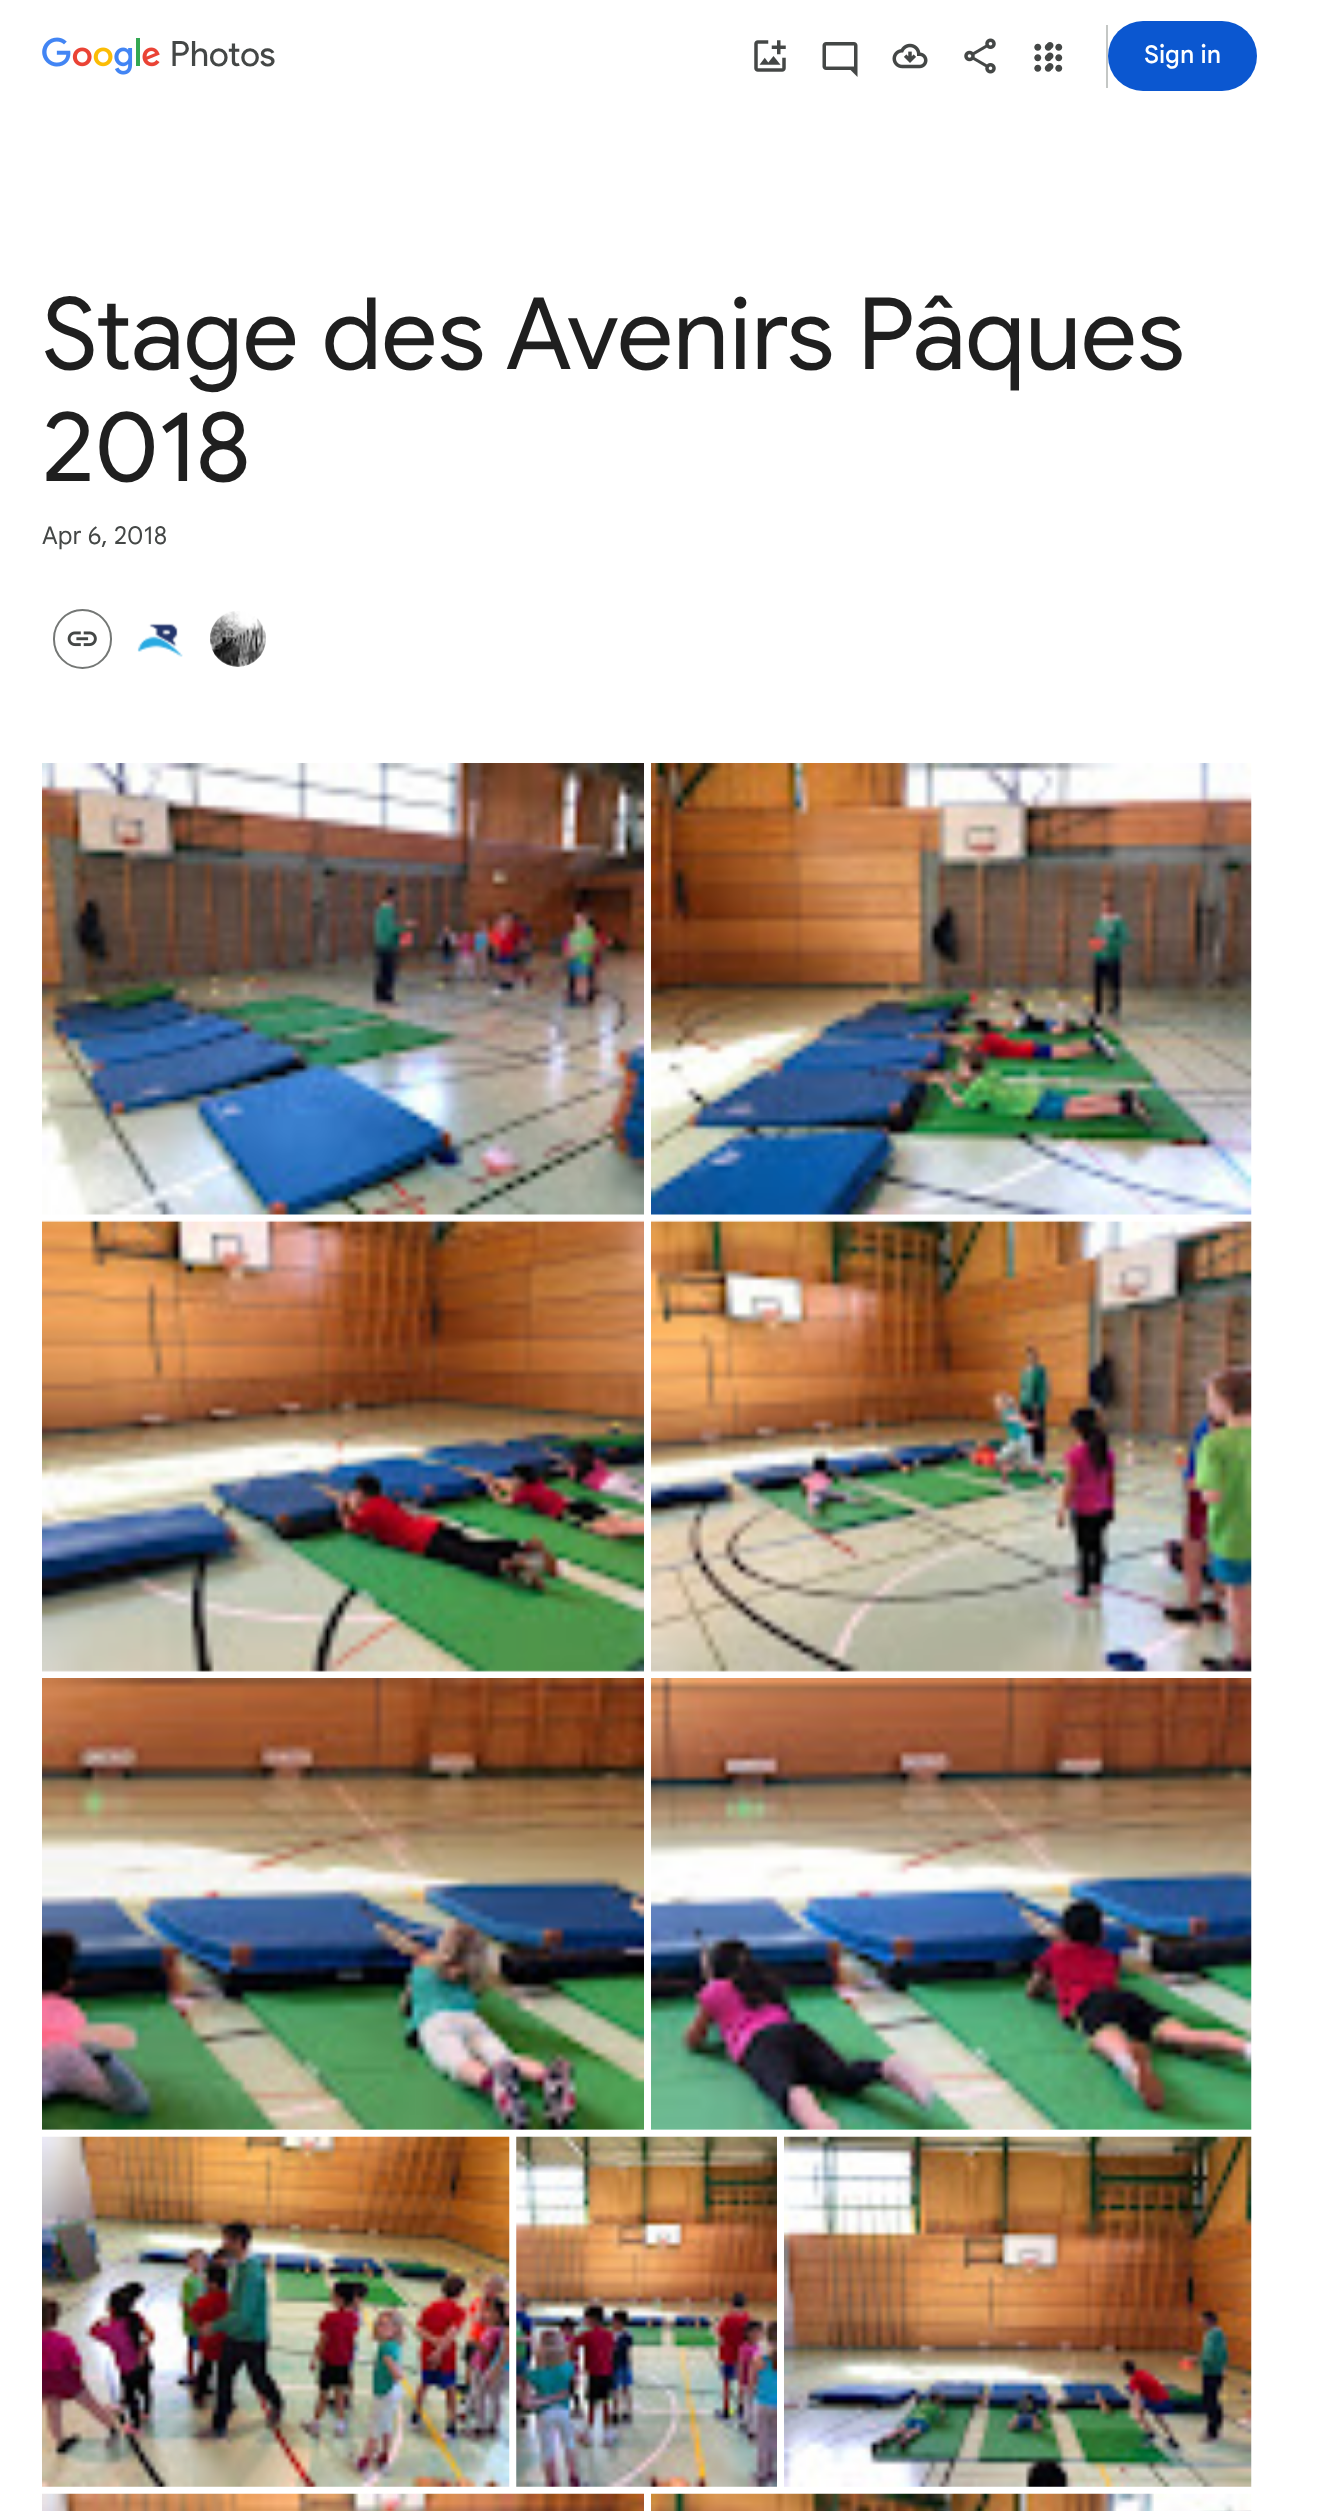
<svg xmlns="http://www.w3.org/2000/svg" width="1318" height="2511">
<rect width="100%" height="100%" fill="#fff"/>
<image x="42" y="37" width="118" height="38" href="media/1.png"/>
<text x="170" y="66" style="font-family:Product Sans;font-size:35px;fill:#444746">Photos</text>
<image x="754" y="40" width="32" height="32" href="media/2.png"/>
<image x="822" y="42" width="36" height="35" href="media/3.png"/>
<image x="892" y="43" width="36" height="26" href="media/4.png"/>
<image x="964" y="38" width="32" height="36" href="media/5.png"/>
<image x="1046" y="42" width="8" height="28" href="media/6.png"/>
<rect x="1106" y="25" width="2" height="63" fill="#c4c7c5"/>
<text x="42" y="369" style="font-family:Google Sans;font-size:99.75px;fill:#1f1f1f">Stage des Avenirs Pâques</text>
<text x="42" y="481" style="font-family:Google Sans;font-size:99.75px;fill:#1f1f1f">2018</text>
<text x="42" y="544" style="font-family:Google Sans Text;font-size:24.5px;fill:#444746">Apr 6, 2018</text>
<rect x="54" y="610" width="57" height="58" rx="28.5" fill="none" stroke="#747775" stroke-width="2"/>
<image x="67" y="631" width="30" height="16" href="media/7.png"/>
<image x="137" y="623" width="46" height="34" href="media/8.png"/>
<image x="210" y="611" width="56" height="56" href="media/9.png"/>
<image x="42" y="763" width="602" height="452" href="media/10.png"/>
<image x="651" y="763" width="601" height="452" href="media/11.png"/>
<image x="42" y="1220" width="602" height="452" href="media/12.png"/>
<image x="651" y="1220" width="601" height="452" href="media/13.png"/>
<image x="42" y="1678" width="602" height="452" href="media/14.png"/>
<image x="651" y="1678" width="601" height="452" href="media/15.png"/>
<image x="42" y="2136" width="468" height="351" href="media/16.png"/>
<image x="516" y="2136" width="261" height="351" href="media/17.png"/>
<image x="784" y="2136" width="468" height="351" href="media/18.png"/>
<image x="42" y="2493" width="602" height="18" href="media/19.png"/>
<image x="651" y="2493" width="601" height="18" href="media/20.png"/>
<image x="1034" y="43" width="29" height="29" href="media/21.png"/>
<rect x="1108" y="21" width="149" height="70" rx="35" fill="#0b57d0"/>
<text x="1144" y="63" style="font-family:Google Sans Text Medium;font-size:24.5px;font-weight:500;fill:#fff">Sign in</text>
</svg>
